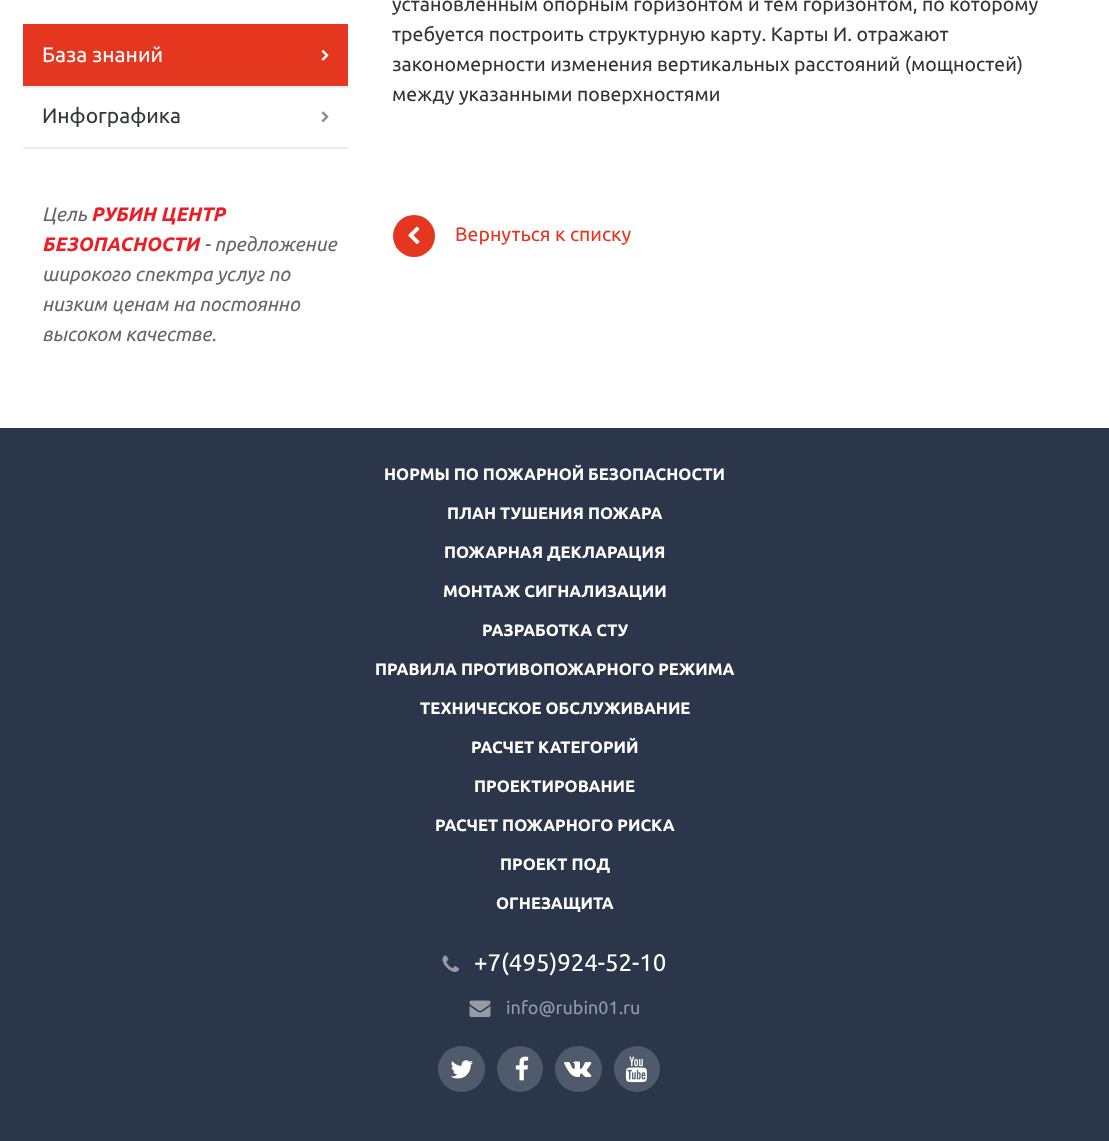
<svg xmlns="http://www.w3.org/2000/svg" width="1109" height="1141">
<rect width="100%" height="100%" fill="#fff"/>
<rect x="23" y="147" width="325" height="2" fill="#ebeef1"/>
<rect x="23" y="24" width="325" height="62" fill="#e53620"/>
<text x="42" y="62" style="font-family:Ubuntu;font-size:21px;fill:#fff">База знаний</text>
<image x="321" y="49" width="8" height="12" href="media/1.png"/>
<rect x="23" y="86" width="325" height="2" fill="#ebeef1"/>
<text x="42" y="123" style="font-family:Ubuntu;font-size:21px;fill:#2f383d">Инфографика</text>
<image x="321" y="111" width="8" height="12" href="media/2.png"/>
<text x="42" y="221" style="font-family:Ubuntu;font-size:19.5px;font-style:italic;fill:#666">Цель</text>
<text x="91" y="221" style="font-family:Ubuntu;font-size:19.5px;font-weight:bold;font-style:italic;fill:#ee1d24">РУБИН ЦЕНТР</text>
<text x="42" y="251" style="font-family:Ubuntu;font-size:19.5px;font-weight:bold;font-style:italic;fill:#ee1d24">БЕЗОПАСНОСТИ</text>
<text x="204" y="251" style="font-family:Ubuntu;font-size:19.5px;font-style:italic;fill:#666">- предложение</text>
<text x="42" y="281" style="font-family:Ubuntu;font-size:19.5px;font-style:italic;fill:#666">широкого спектра услуг по</text>
<text x="42" y="311" style="font-family:Ubuntu;font-size:19.5px;font-style:italic;fill:#666">низким ценам на постоянно</text>
<text x="42" y="341" style="font-family:Ubuntu;font-size:19.5px;font-style:italic;fill:#666">высоком качестве.</text>
<text x="392" y="11" style="font-family:Ubuntu;font-size:19.5px;fill:#333">установленным опорным горизонтом и тем горизонтом, по которому</text>
<text x="392" y="41" style="font-family:Ubuntu;font-size:19.5px;fill:#333">требуется построить структурную карту. Карты И. отражают</text>
<text x="392" y="71" style="font-family:Ubuntu;font-size:19.5px;fill:#333">закономерности изменения вертикальных расстояний (мощностей)</text>
<text x="392" y="101" style="font-family:Ubuntu;font-size:19.5px;fill:#333">между указанными поверхностями</text>
<circle cx="414" cy="236" r="21" fill="#e53620"/>
<image x="408" y="226" width="12" height="18" href="media/3.png"/>
<text x="455" y="241" style="font-family:Ubuntu;font-size:19.5px;fill:#e53620">Вернуться к списку</text>
<rect y="428" width="1109" height="713" fill="#2c364a"/>
<text x="384" y="480" style="font-family:Ubuntu;font-size:16.5px;font-weight:bold;fill:#fff">НОРМЫ ПО ПОЖАРНОЙ БЕЗОПАСНОСТИ</text>
<text x="447" y="519" style="font-family:Ubuntu;font-size:16.5px;font-weight:bold;fill:#fff">ПЛАН ТУШЕНИЯ ПОЖАРА</text>
<text x="444" y="558" style="font-family:Ubuntu;font-size:16.5px;font-weight:bold;fill:#fff">ПОЖАРНАЯ ДЕКЛАРАЦИЯ</text>
<text x="443" y="597" style="font-family:Ubuntu;font-size:16.5px;font-weight:bold;fill:#fff">МОНТАЖ СИГНАЛИЗАЦИИ</text>
<text x="482" y="636" style="font-family:Ubuntu;font-size:16.5px;font-weight:bold;fill:#fff">РАЗРАБОТКА СТУ</text>
<text x="375" y="675" style="font-family:Ubuntu;font-size:16.5px;font-weight:bold;fill:#fff">ПРАВИЛА ПРОТИВОПОЖАРНОГО РЕЖИМА</text>
<text x="420" y="714" style="font-family:Ubuntu;font-size:16.5px;font-weight:bold;fill:#fff">ТЕХНИЧЕСКОЕ ОБСЛУЖИВАНИЕ</text>
<text x="471" y="753" style="font-family:Ubuntu;font-size:16.5px;font-weight:bold;fill:#fff">РАСЧЕТ КАТЕГОРИЙ</text>
<text x="474" y="792" style="font-family:Ubuntu;font-size:16.5px;font-weight:bold;fill:#fff">ПРОЕКТИРОВАНИЕ</text>
<text x="435" y="831" style="font-family:Ubuntu;font-size:16.5px;font-weight:bold;fill:#fff">РАСЧЕТ ПОЖАРНОГО РИСКА</text>
<text x="500" y="870" style="font-family:Ubuntu;font-size:16.5px;font-weight:bold;fill:#fff">ПРОЕКТ ПОД</text>
<text x="496" y="909" style="font-family:Ubuntu;font-size:16.5px;font-weight:bold;fill:#fff">ОГНЕЗАЩИТА</text>
<image x="442" y="955" width="17" height="17" href="media/4.png"/>
<text x="474" y="971" style="font-family:Ubuntu;font-size:24px;fill:#fff">+7(495)924-52-10</text>
<image x="469" y="1000" width="22" height="17" href="media/5.png"/>
<text x="506" y="1014" style="font-family:Ubuntu;font-size:18px;fill:#969ba5">info@rubin01.ru</text>
<rect x="438" y="1046" width="47" height="46" rx="23" fill="#4f5a6b"/>
<image x="450" y="1060" width="23" height="19" href="media/6.png"/>
<circle cx="520" cy="1069" r="23" fill="#4f5a6b"/>
<image x="515" y="1056" width="14" height="25" href="media/7.png"/>
<rect x="555" y="1046" width="47" height="46" rx="23" fill="#4f5a6b"/>
<image x="564" y="1061" width="28" height="16" href="media/8.png"/>
<circle cx="637" cy="1069" r="23" fill="#4f5a6b"/>
<image x="625" y="1056" width="22" height="27" href="media/9.png"/>
</svg>
